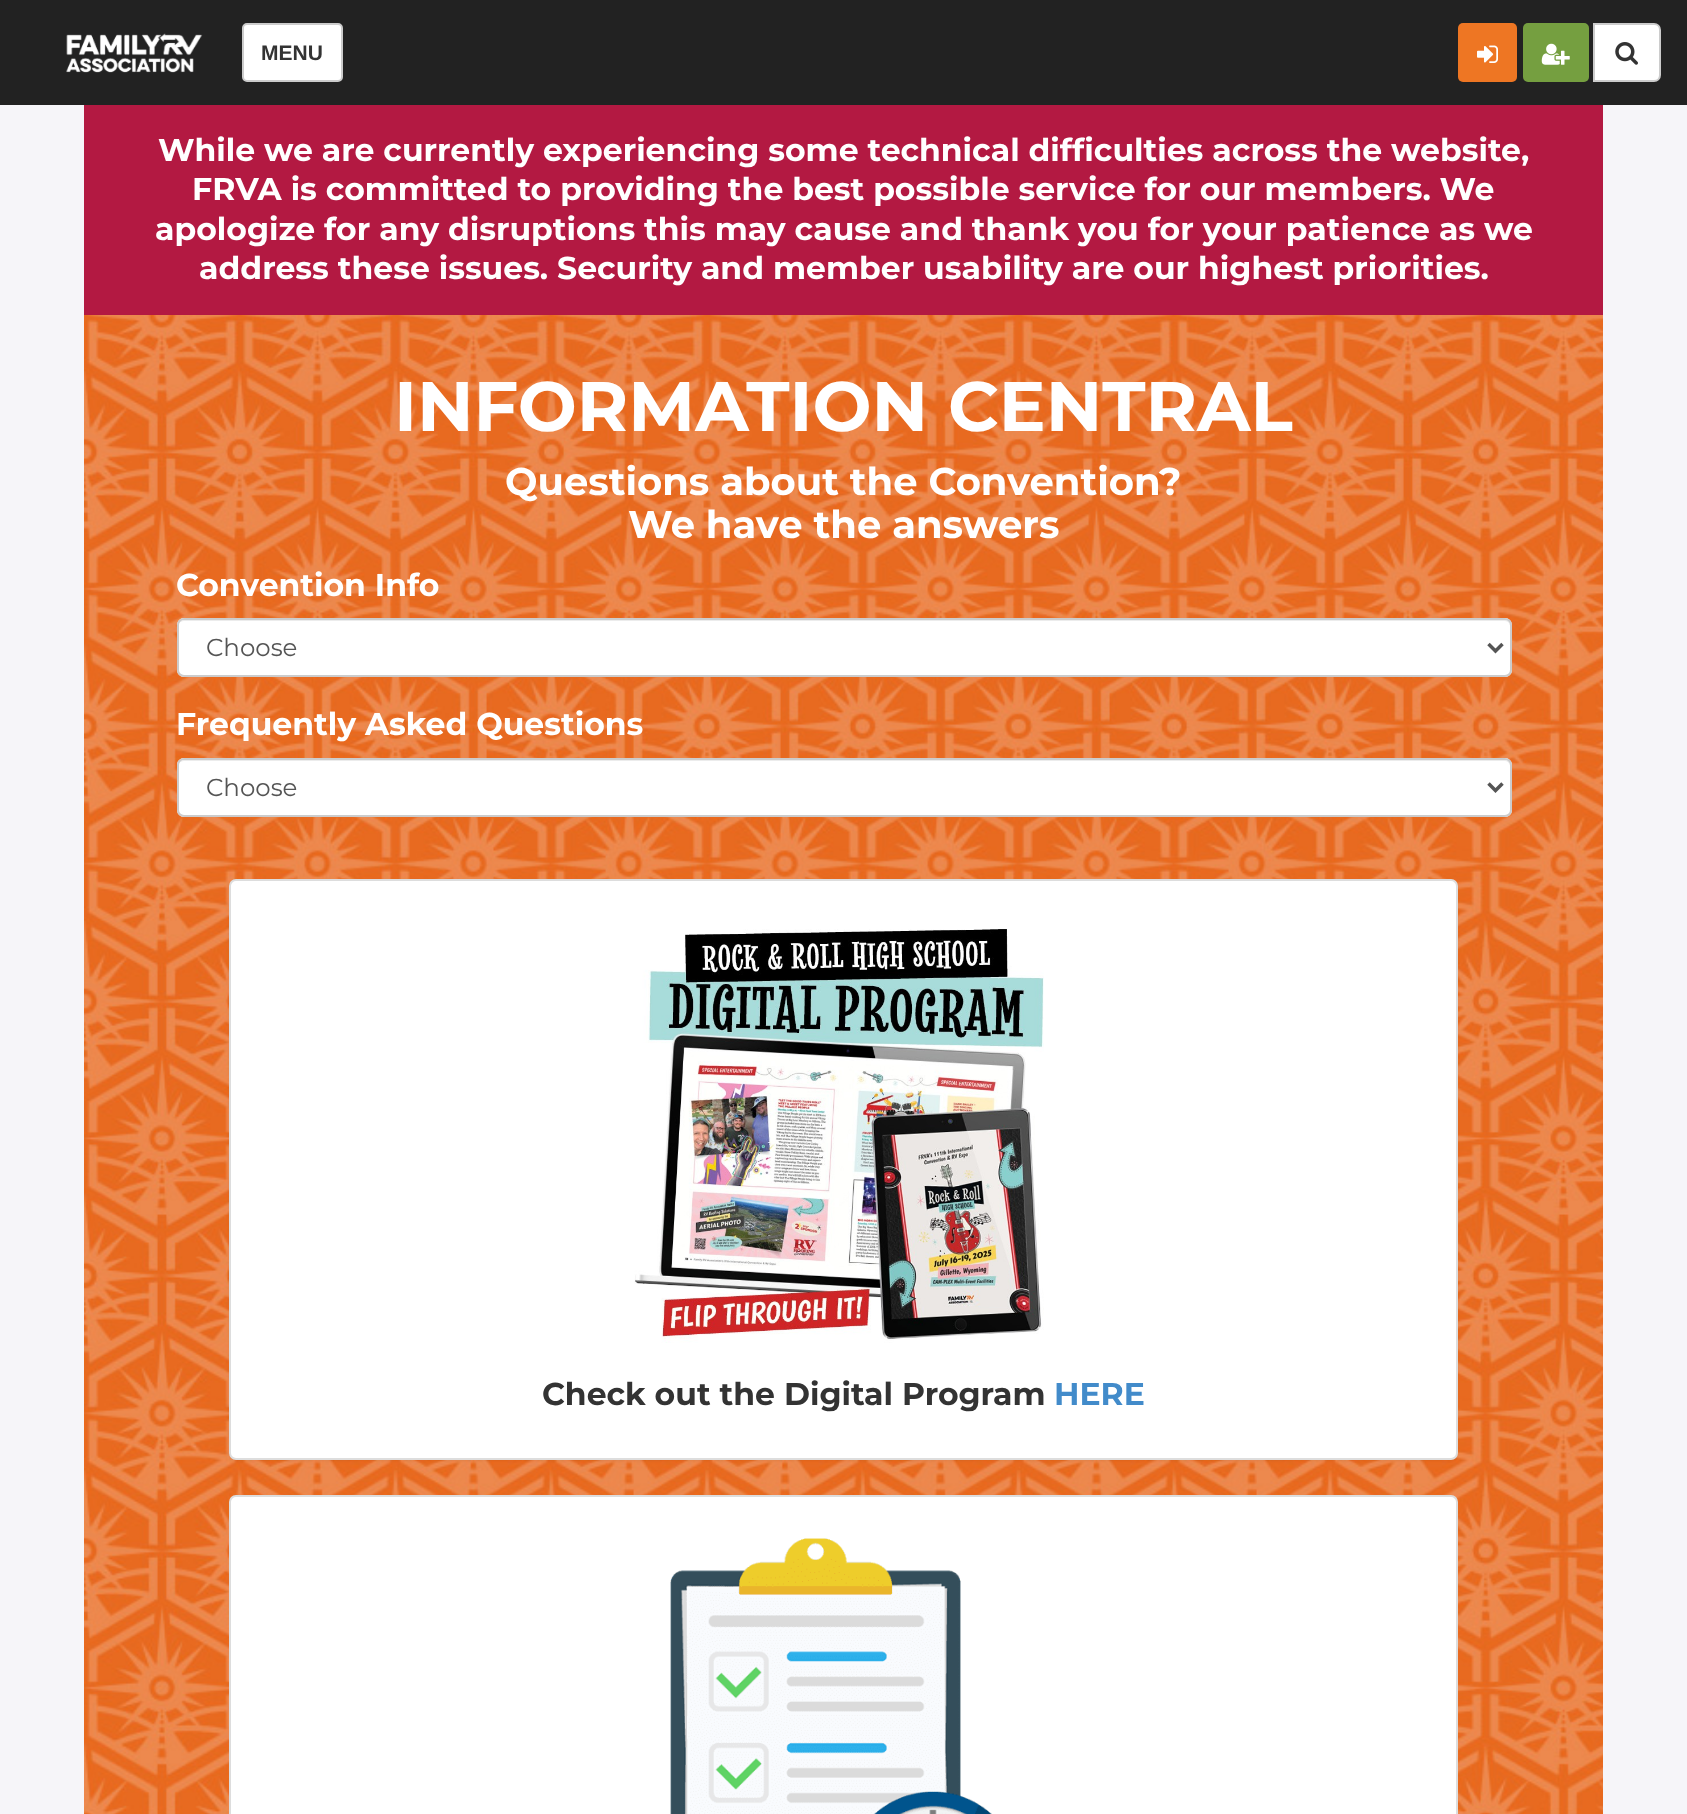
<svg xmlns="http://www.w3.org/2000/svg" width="1687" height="1814">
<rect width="100%" height="100%" fill="#f6f5f9"/>
<rect width="1687" height="105" fill="#222"/>
<image x="66" y="33" width="137" height="40" href="media/1.png"/>
<rect x="243" y="24" width="99" height="57" rx="4" fill="#fff" stroke="#ccc" stroke-width="2"/>
<text x="261" y="60" style="font-family:Liberation Sans;font-size:21px;font-weight:bold;fill:#333">MENU</text>
<rect x="1458" y="23" width="59" height="59" rx="5" fill="#ee7623"/>
<image x="1477" y="45" width="21" height="18" href="media/2.png"/>
<rect x="1523" y="23" width="66" height="59" rx="5" fill="#759f40"/>
<image x="1541" y="43" width="29" height="22" href="media/3.png"/>
<path d="M1594 24h60c3.5 0 6 2.5 6 6v45c0 3.5-2.5 6-6 6h-60z" fill="#fff" stroke="#ccc" stroke-width="2"/>
<image x="1615" y="42" width="23" height="23" href="media/4.png"/>
<rect x="84" y="105" width="1519" height="210" fill="#b31942"/>
<text x="158" y="161" style="font-family:Montserrat;font-size:31.5px;font-weight:bold;fill:#fff">While we are currently experiencing some technical difficulties across the website,</text>
<text x="192" y="200" style="font-family:Montserrat;font-size:31.5px;font-weight:bold;fill:#fff">FRVA is committed to providing the best possible service for our members. We</text>
<text x="155" y="240" style="font-family:Montserrat;font-size:31.5px;font-weight:bold;fill:#fff">apologize for any disruptions this may cause and thank you for your patience as we</text>
<text x="199" y="279" style="font-family:Montserrat;font-size:31.5px;font-weight:bold;fill:#fff">address these issues. Security and member usability are our highest priorities.</text>
<image x="84" y="315" width="1519" height="1499" href="media/5.png"/>
<text x="394" y="431" style="font-family:Montserrat;font-size:70px;font-weight:bold;fill:#fff">INFORMATION CENTRAL</text>
<text x="505" y="495" style="font-family:Montserrat;font-size:38.5px;font-weight:bold;fill:#fff">Questions about the Convention?</text>
<text x="628" y="538" style="font-family:Montserrat;font-size:38.5px;font-weight:bold;fill:#fff">We have the answers</text>
<text x="176" y="596" style="font-family:Montserrat;font-size:31.5px;font-weight:bold;fill:#fff">Convention Info</text>
<rect x="177" y="618" width="1335" height="59" rx="7" fill="#fff"/>
<path d="M184 621h1321c3 0 5 3 5 5v-1c0-3-2-5-5-5h-1321c-2 0-4 1-5 3c1-1 3-2 5-2z" fill="#ececec"/>
<rect x="178" y="619" width="1333" height="57" rx="6" fill="none" stroke="#ccc" stroke-width="2"/>
<path d="M1488.5 644l7 7l7-7" fill="none" stroke="#555" stroke-width="3.5"/>
<text x="206" y="656" style="font-family:Montserrat;font-size:24.5px;fill:#555">Choose</text>
<text x="176" y="735" style="font-family:Montserrat;font-size:31.5px;font-weight:bold;fill:#fff">Frequently Asked Questions</text>
<rect x="177" y="758" width="1335" height="59" rx="7" fill="#fff"/>
<path d="M184 761h1321c3 0 5 3 5 5v-1c0-3-2-5-5-5h-1321c-2 0-4 1-5 3c1-1 3-2 5-2z" fill="#ececec"/>
<rect x="178" y="759" width="1333" height="57" rx="6" fill="none" stroke="#ccc" stroke-width="2"/>
<path d="M1488.5 783.5l7 7l7-7" fill="none" stroke="#555" stroke-width="3.5"/>
<text x="206" y="796" style="font-family:Montserrat;font-size:24.5px;fill:#555">Choose</text>
<rect x="229" y="880" width="1229" height="581" rx="7" fill="#0000000d" filter="blur(1px)"/>
<rect x="230" y="880" width="1227" height="579" rx="6" fill="#fff" stroke="#ddd" stroke-width="2"/>
<image x="634" y="929" width="410" height="414" href="media/6.png"/>
<text x="542" y="1405" style="font-family:Montserrat;font-size:31.5px;font-weight:bold;fill:#333">Check out the Digital Program</text>
<text x="1054" y="1405" style="font-family:Montserrat;font-size:31.5px;font-weight:bold;fill:#428bca">HERE</text>
<rect x="230" y="1496" width="1227" height="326" rx="6" fill="#fff" stroke="#ddd" stroke-width="2"/>
<image x="670" y="1538" width="322" height="276" href="media/7.png"/>
</svg>
